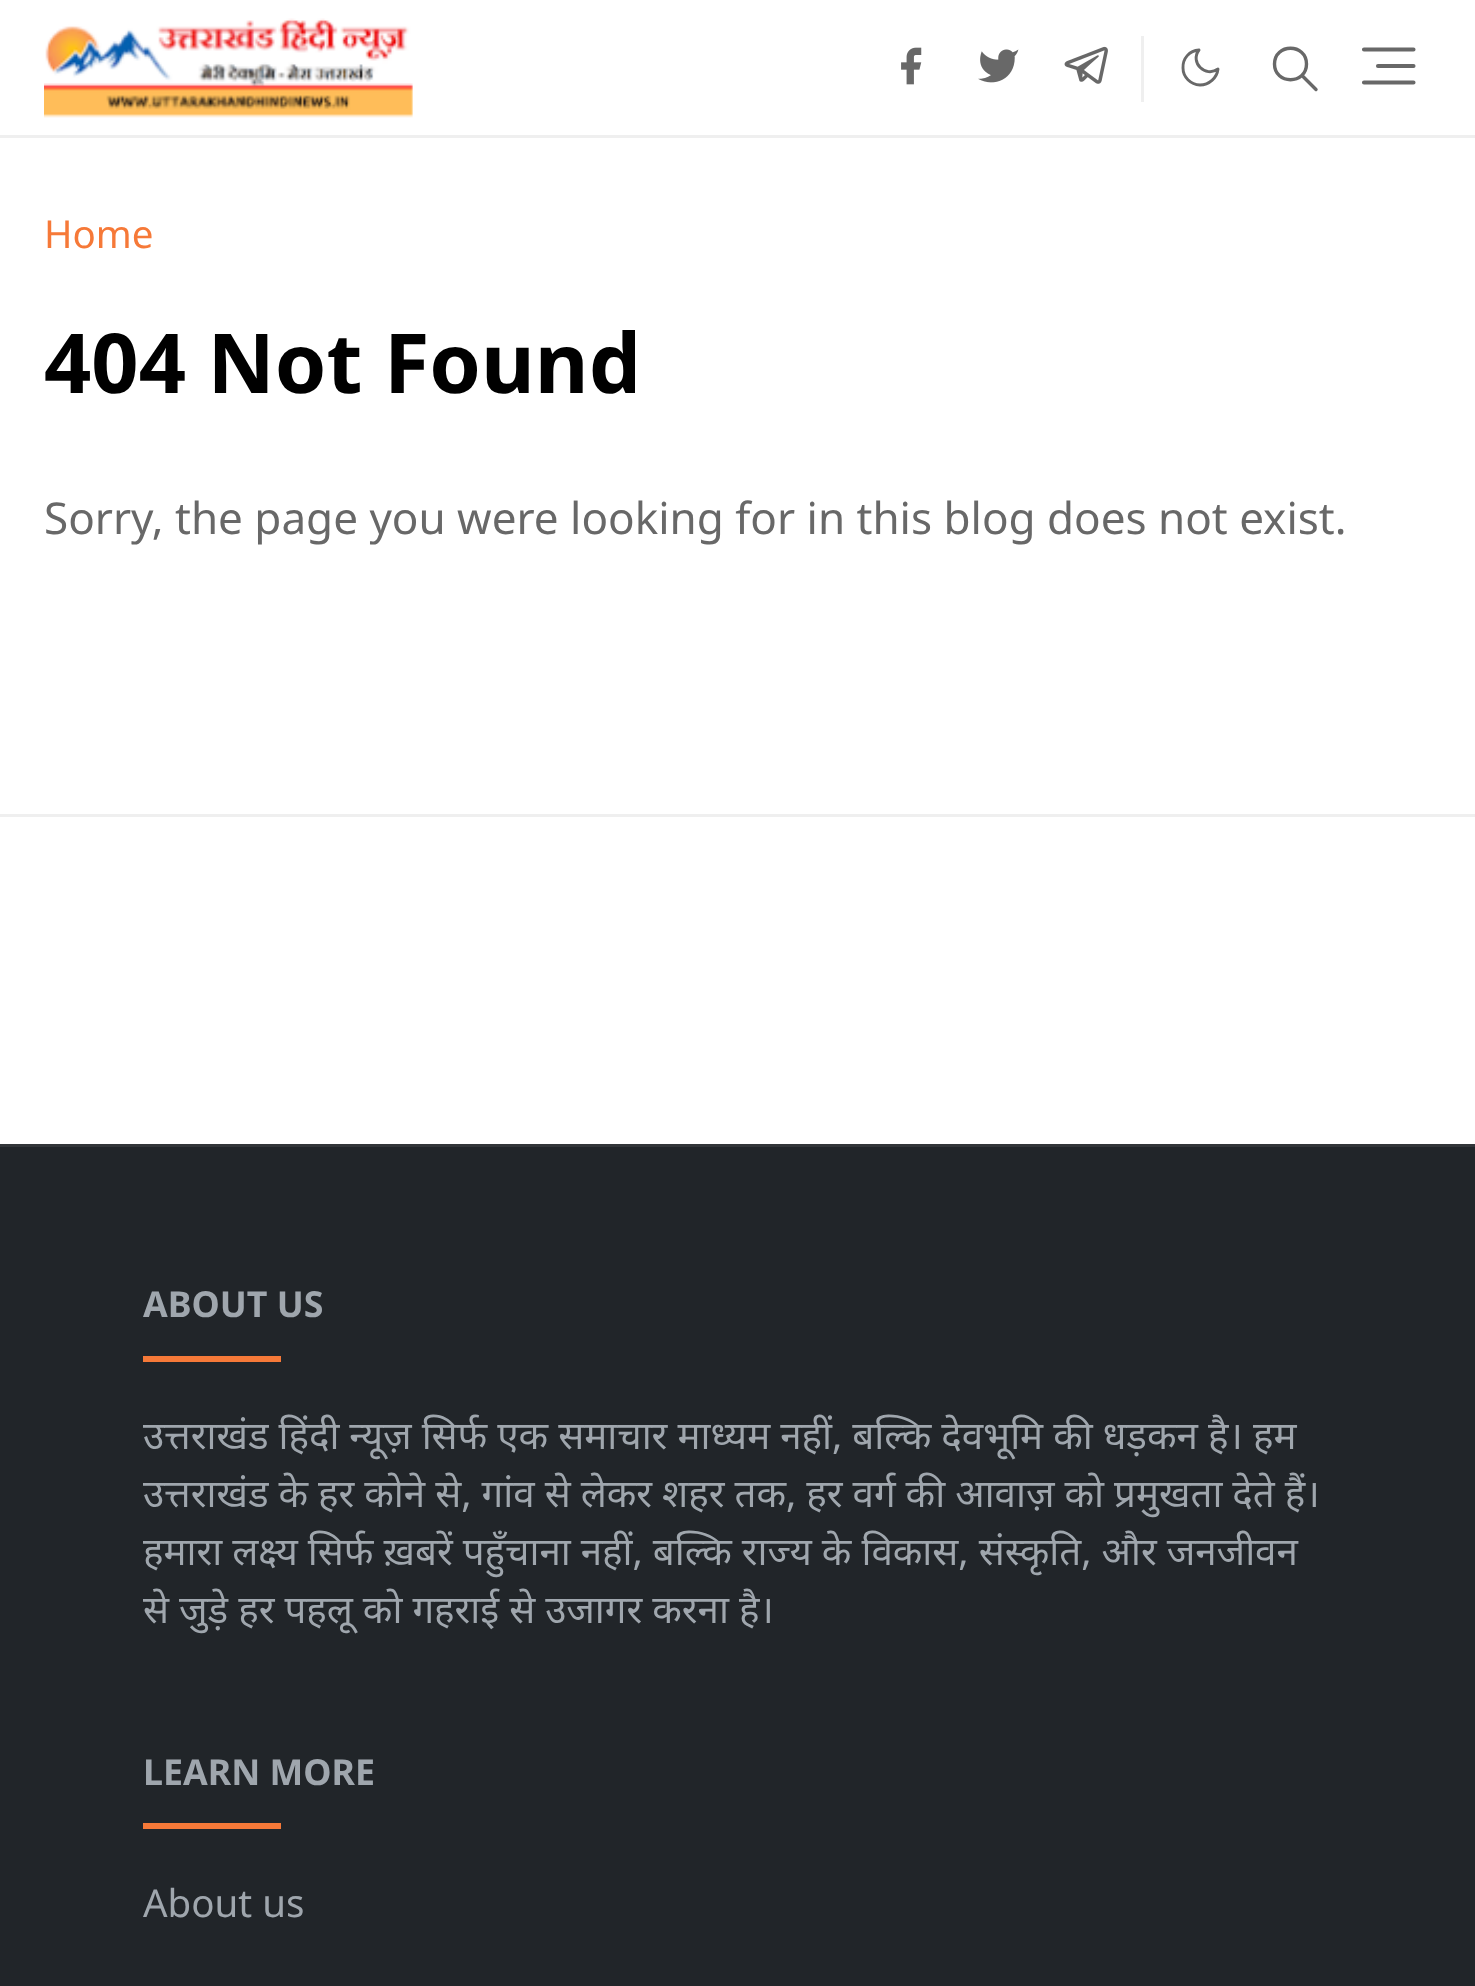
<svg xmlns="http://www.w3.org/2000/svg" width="1475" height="1986">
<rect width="100%" height="100%" fill="#fff"/>
<rect y="135" width="1475" height="3" fill="#efefef"/>
<image x="44" y="18" width="369" height="100" href="media/1.png"/>
<rect x="1141" y="36" width="3" height="66" fill="#efefef"/>
<image x="901" y="47" width="21" height="38" href="media/2.png"/>
<image x="978" y="49" width="41" height="34" href="media/3.png"/>
<image x="1064" y="46" width="44" height="38" href="media/4.png"/>
<path d="M1218 69c-1 9-9 16-18 16c-9.5-.5-17-8-17-17c-.5-9.5 6.5-17.5 16-18c-9.5 12.5 6.5 28 19 19z" fill="none" stroke="#686868" stroke-width="2.9" stroke-linecap="round" stroke-linejoin="round"/>
<path d="M1316 89.5l-14-14m4.5-11.5c0 21-32 21-32 0c0-21 32-21 32 0z" fill="none" stroke="#686868" stroke-width="3.4" stroke-linecap="round" stroke-linejoin="round"/>
<path d="M1364 49.5h49.5m-35.5 16.5h35.5m-49.5 16.5h49.5" fill="none" stroke="#686868" stroke-width="4.1" stroke-linecap="round" stroke-linejoin="round"/>
<text x="44" y="248" style="font-family:Noto Sans;font-size:38.5px;fill:#f67938">Home</text>
<text x="44" y="393" style="font-family:Noto Sans;font-size:82.75px;font-weight:bold;fill:#000">404 Not Found</text>
<text x="44" y="534" style="font-family:Noto Sans;font-size:44px;fill:#686868">Sorry, the page you were looking for in this blog does not exist.</text>
<rect y="814" width="1475" height="3" fill="#efefef"/>
<rect y="1147" width="1475" height="839" fill="#212529"/>
<rect y="1144" width="1475" height="3" fill="#323539"/>
<text x="143" y="1317" style="font-family:Noto Sans;font-size:35.75px;font-weight:bold;fill:#9fa6ad">ABOUT US</text>
<rect x="143" y="1356" width="138" height="6" fill="#f67938"/>
<text x="143" y="1449" style="font-family:Noto Sans;font-size:38.5px;fill:#9fa6ad">उत्तराखंड हिंदी न्यूज़ सिर्फ एक समाचार माध्यम नहीं, बल्कि देवभूमि की धड़कन है। हम</text>
<text x="143" y="1507" style="font-family:Noto Sans;font-size:38.5px;fill:#9fa6ad">उत्तराखंड के हर कोने से, गांव से लेकर शहर तक, हर वर्ग की आवाज़ को प्रमुखता देते हैं।</text>
<text x="143" y="1565" style="font-family:Noto Sans;font-size:38.5px;fill:#9fa6ad">हमारा लक्ष्य सिर्फ ख़बरें पहुँचाना नहीं, बल्कि राज्य के विकास, संस्कृति, और जनजीवन</text>
<text x="143" y="1623" style="font-family:Noto Sans;font-size:38.5px;fill:#9fa6ad">से जुड़े हर पहलू को गहराई से उजागर करना है।</text>
<text x="143" y="1785" style="font-family:Noto Sans;font-size:35.75px;font-weight:bold;fill:#9fa6ad">LEARN MORE</text>
<rect x="143" y="1823" width="138" height="6" fill="#f67938"/>
<text x="143" y="1917" style="font-family:Noto Sans;font-size:38.5px;fill:#9fa6ad">About us</text>
</svg>
